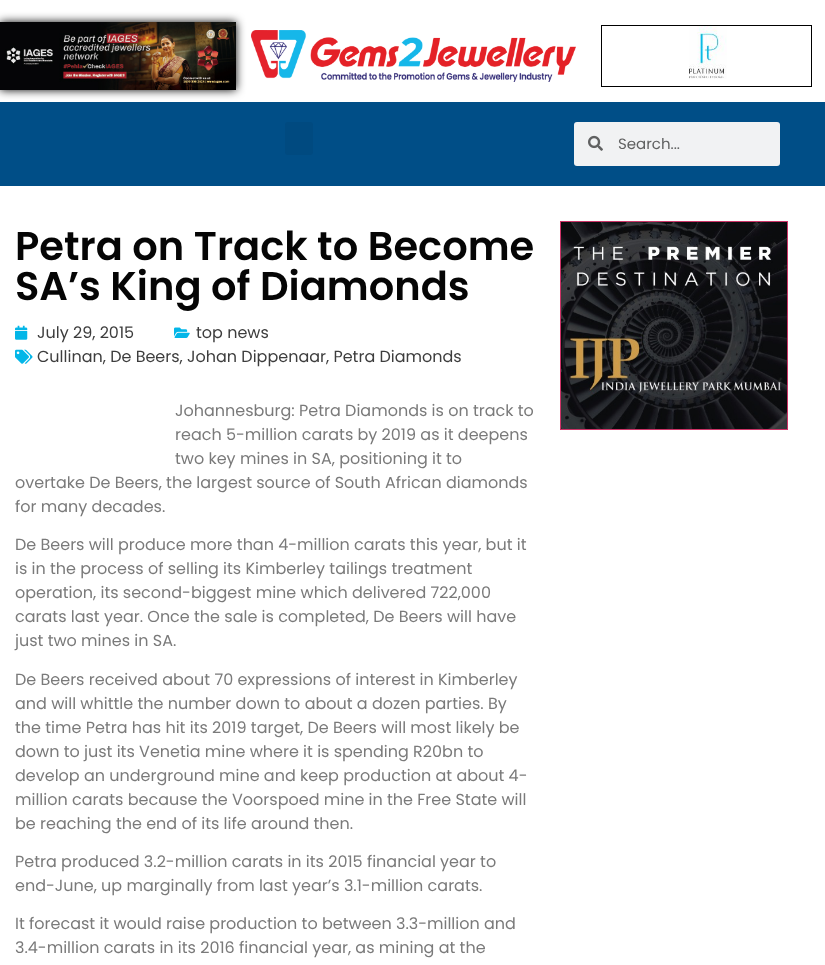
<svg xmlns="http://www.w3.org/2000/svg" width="825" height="965">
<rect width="100%" height="100%" fill="#fff"/>
<rect y="22" width="236" height="68" fill="#000000fa" filter="blur(5px)"/>
<image x="0" y="22" width="236" height="68" href="media/1.png"/>
<image x="251" y="30" width="325" height="52" href="media/2.png"/>
<rect x="601.5" y="25.5" width="210" height="61" fill="none" stroke="#000"/>
<image x="689" y="26" width="38" height="53" href="media/3.png"/>
<rect y="102" width="825" height="84" fill="#004e87"/>
<rect x="285" y="122" width="28" height="33" rx="3" fill="#004a80"/>
<rect x="574" y="122" width="206" height="44" rx="3" fill="#f1f2f3"/>
<image x="588" y="135" width="15" height="16" href="media/4.png"/>
<text x="618" y="149" style="font-family:Poppins;font-size:15px;fill:#606161">Search...</text>
<text x="15" y="260" style="font-family:Poppins;font-size:40px;font-weight:600;fill:#050505">Petra on Track to Become</text>
<text x="15" y="300" style="font-family:Poppins;font-size:40px;font-weight:600;fill:#050505">SA’s King of Diamonds</text>
<image x="15" y="325" width="13" height="15" href="media/5.png"/>
<text x="37" y="338" style="font-family:Poppins;font-size:16px;fill:#3d3d3d">July 29, 2015</text>
<image x="174" y="327" width="16" height="11" href="media/6.png"/>
<text x="196" y="338" style="font-family:Poppins;font-size:16px;fill:#3d3d3d">top news</text>
<image x="15" y="349" width="18" height="15" href="media/7.png"/>
<text x="37" y="362" style="font-family:Poppins;font-size:16px;fill:#3d3d3d">Cullinan, De Beers, Johan Dippenaar, Petra Diamonds</text>
<text x="175" y="416" style="font-family:Poppins;font-size:16px;fill:#7a7a7a">Johannesburg: Petra Diamonds is on track to</text>
<text x="175" y="440" style="font-family:Poppins;font-size:16px;fill:#7a7a7a">reach 5-million carats by 2019 as it deepens</text>
<text x="175" y="464" style="font-family:Poppins;font-size:16px;fill:#7a7a7a">two key mines in SA, positioning it to</text>
<text x="15" y="488" style="font-family:Poppins;font-size:16px;fill:#7a7a7a">overtake De Beers, the largest source of South African diamonds</text>
<text x="15" y="512" style="font-family:Poppins;font-size:16px;fill:#7a7a7a">for many decades.</text>
<text x="15" y="550" style="font-family:Poppins;font-size:16px;fill:#7a7a7a">De Beers will produce more than 4-million carats this year, but it</text>
<text x="15" y="574" style="font-family:Poppins;font-size:16px;fill:#7a7a7a">is in the process of selling its Kimberley tailings treatment</text>
<text x="15" y="598" style="font-family:Poppins;font-size:16px;fill:#7a7a7a">operation, its second-biggest mine which delivered 722,000</text>
<text x="15" y="622" style="font-family:Poppins;font-size:16px;fill:#7a7a7a">carats last year. Once the sale is completed, De Beers will have</text>
<text x="15" y="646" style="font-family:Poppins;font-size:16px;fill:#7a7a7a">just two mines in SA.</text>
<text x="15" y="685" style="font-family:Poppins;font-size:16px;fill:#7a7a7a">De Beers received about 70 expressions of interest in Kimberley</text>
<text x="15" y="709" style="font-family:Poppins;font-size:16px;fill:#7a7a7a">and will whittle the number down to about a dozen parties. By</text>
<text x="15" y="733" style="font-family:Poppins;font-size:16px;fill:#7a7a7a">the time Petra has hit its 2019 target, De Beers will most likely be</text>
<text x="15" y="757" style="font-family:Poppins;font-size:16px;fill:#7a7a7a">down to just its Venetia mine where it is spending R20bn to</text>
<text x="15" y="781" style="font-family:Poppins;font-size:16px;fill:#7a7a7a">develop an underground mine and keep production at about 4-</text>
<text x="15" y="805" style="font-family:Poppins;font-size:16px;fill:#7a7a7a">million carats because the Voorspoed mine in the Free State will</text>
<text x="15" y="829" style="font-family:Poppins;font-size:16px;fill:#7a7a7a">be reaching the end of its life around then.</text>
<text x="15" y="867" style="font-family:Poppins;font-size:16px;fill:#7a7a7a">Petra produced 3.2-million carats in its 2015 financial year to</text>
<text x="15" y="891" style="font-family:Poppins;font-size:16px;fill:#7a7a7a">end-June, up marginally from last year’s 3.1-million carats.</text>
<text x="15" y="929" style="font-family:Poppins;font-size:16px;fill:#7a7a7a">It forecast it would raise production to between 3.3-million and</text>
<text x="15" y="953" style="font-family:Poppins;font-size:16px;fill:#7a7a7a">3.4-million carats in its 2016 financial year, as mining at the</text>
<rect x="560.5" y="221.5" width="227" height="208" fill="none" stroke="#c36"/>
<image x="561" y="222" width="226" height="207" href="media/8.png"/>
</svg>
